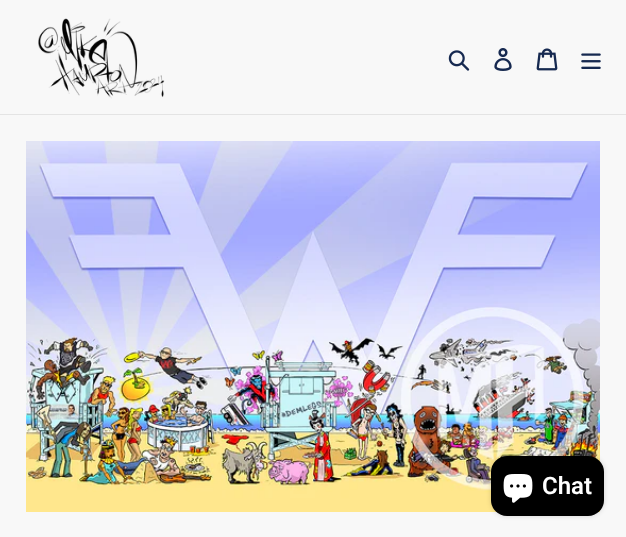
<svg xmlns="http://www.w3.org/2000/svg" width="626" height="537">
<rect width="100%" height="100%" fill="#f8f8f8"/>
<rect y="114" width="626" height="1" fill="#e4e4e4"/>
<image x="38" y="18" width="127" height="81" href="media/1.png"/>
<image x="448" y="50" width="22" height="21" href="media/2.png"/>
<image x="494" y="48" width="18" height="23" href="media/3.png"/>
<image x="536" y="48" width="22" height="23" href="media/4.png"/>
<image x="581" y="53" width="20" height="16" href="media/5.png"/>
<image x="26" y="141" width="574" height="371" href="media/6.png"/>
<rect x="491" y="456" width="113" height="60" rx="16" fill="#00000026" filter="blur(2.5px)"/>
<rect x="491" y="456" width="113" height="60" rx="16" fill="#000"/>
<image x="503" y="474" width="30" height="29" href="media/7.png"/>
<text x="542" y="494" style="font-family:Roboto;font-size:24px;font-weight:600;fill:#fff">Chat</text>
</svg>
